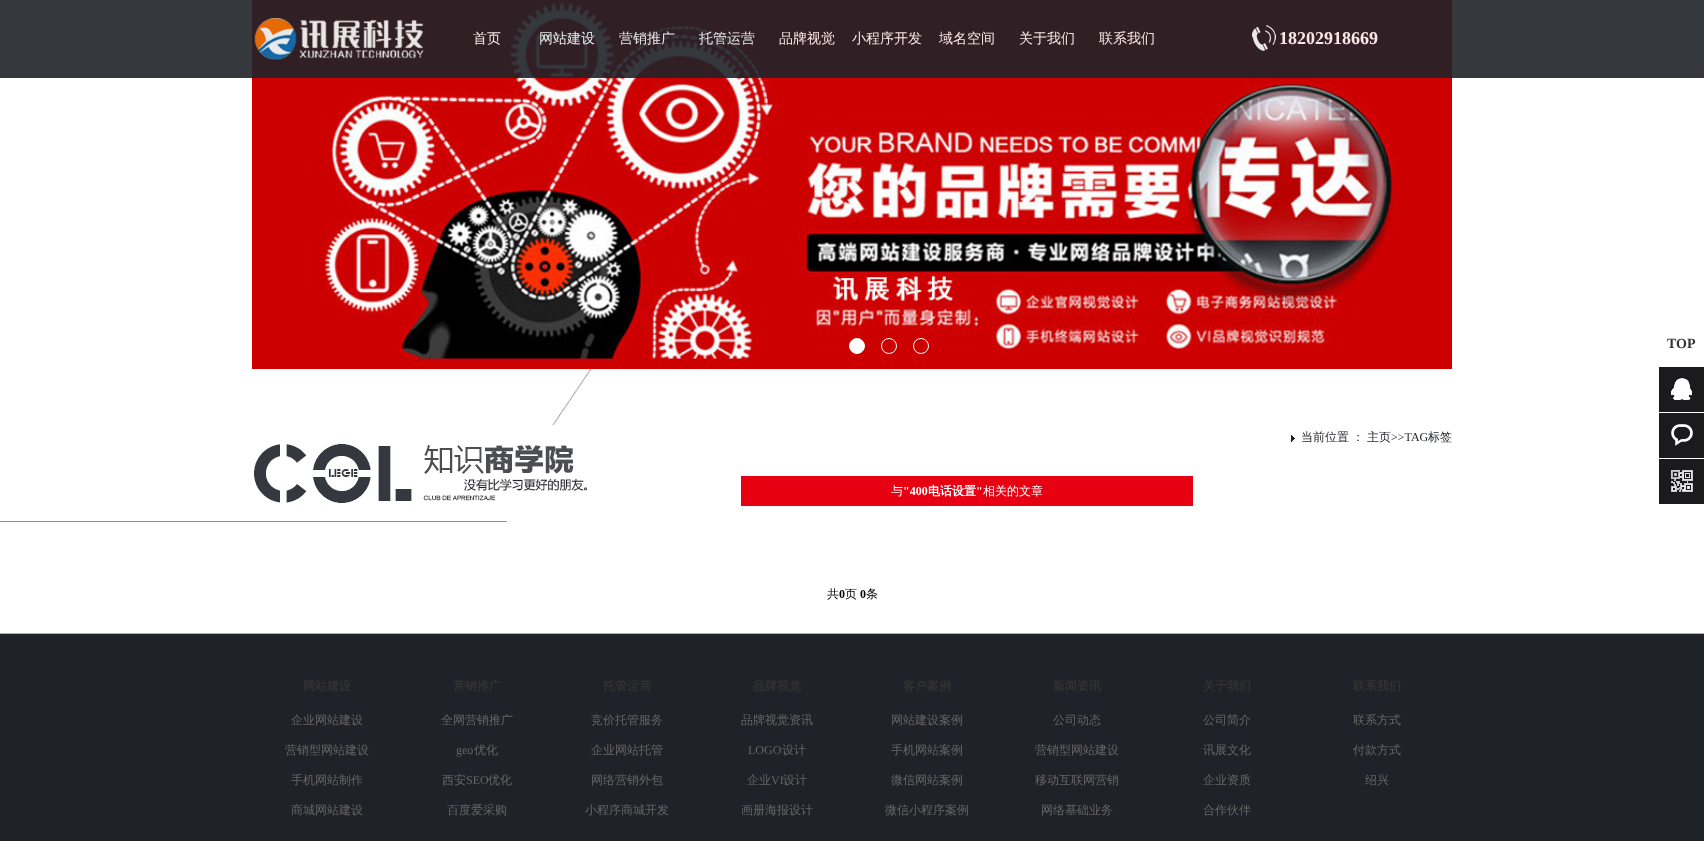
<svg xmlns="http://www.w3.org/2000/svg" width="1704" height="841">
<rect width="100%" height="100%" fill="#fff"/>
<image x="252" y="0" width="1200" height="369" href="media/1.png"/>
<circle cx="857" cy="346" r="7.5" fill="#fff" stroke="#fff"/>
<circle cx="889" cy="346" r="7.5" fill="none" stroke="#fff"/>
<circle cx="921" cy="346" r="7.5" fill="none" stroke="#fff"/>
<rect width="1704" height="78" fill="#1f2228e6"/>
<image x="254" y="18" width="170" height="42" href="media/2.png"/>
<text x="473" y="43" style="font-family:WenQuanYi Zen Hei;font-size:14px;font-weight:500;fill:#fae6e6">首页</text>
<text x="539" y="43" style="font-family:WenQuanYi Zen Hei;font-size:14px;font-weight:500;fill:#eae9ea">网站建设</text>
<text x="619" y="43" style="font-family:WenQuanYi Zen Hei;font-size:14px;font-weight:500;fill:#eae9ea">营销推广</text>
<text x="699" y="43" style="font-family:WenQuanYi Zen Hei;font-size:14px;font-weight:500;fill:#eae9ea">托管运营</text>
<text x="779" y="43" style="font-family:WenQuanYi Zen Hei;font-size:14px;font-weight:500;fill:#fae6e6">品牌视觉</text>
<text x="852" y="43" style="font-family:WenQuanYi Zen Hei;font-size:14px;font-weight:500;fill:#fae6e6">小程序开发</text>
<text x="939" y="43" style="font-family:WenQuanYi Zen Hei;font-size:14px;font-weight:500;fill:#fae6e6">域名空间</text>
<text x="1019" y="43" style="font-family:WenQuanYi Zen Hei;font-size:14px;font-weight:500;fill:#fae6e6">关于我们</text>
<text x="1099" y="43" style="font-family:WenQuanYi Zen Hei;font-size:14px;font-weight:500;fill:#fae6e6">联系我们</text>
<image x="1252" y="25" width="24" height="26" href="media/3.png"/>
<text x="1279" y="44" style="font-family:Liberation Serif;font-size:18px;font-weight:bold;fill:#fae6e6">18202918669</text>
<text x="1667" y="348" style="font-family:Liberation Serif;font-size:14px;font-weight:bold;fill:#333">TOP</text>
<rect x="1659" y="367" width="45" height="45" fill="#1b1b1d"/>
<image x="1671" y="378" width="21" height="22" href="media/4.png"/>
<rect x="1659" y="413" width="45" height="45" fill="#1b1b1d"/>
<image x="1671" y="424" width="22" height="22" href="media/5.png"/>
<rect x="1659" y="459" width="45" height="45" fill="#1b1b1d"/>
<image x="1671" y="470" width="22" height="22" href="media/6.png"/>
<rect y="633" width="1704" height="1" fill="#b2b2b2"/>
<image x="552" y="369" width="40" height="56" href="media/7.png"/>
<rect y="521" width="507" height="1" fill="#909090"/>
<image x="254" y="444" width="333" height="59" href="media/8.png"/>
<image x="1291" y="435" width="4" height="7" href="media/9.png"/>
<text x="1301" y="441" style="font-family:WenQuanYi Zen Hei;font-size:12px;font-weight:500;fill:#1f2228">当前位置</text>
<text x="1352" y="441" style="font-family:WenQuanYi Zen Hei;font-size:12px;font-weight:500;fill:#1f2228">：</text>
<text x="1367" y="441" style="font-family:WenQuanYi Zen Hei;font-size:12px;font-weight:500;fill:#1f2228">主页</text>
<text x="1391" y="441" style="font-family:Liberation Serif;font-size:12px;fill:#1f2228">&gt;&gt;TAG</text>
<text x="1428" y="441" style="font-family:WenQuanYi Zen Hei;font-size:12px;font-weight:500;fill:#1f2228">标签</text>
<rect x="741" y="476" width="452" height="30" fill="#e60012"/>
<text x="891" y="495" style="font-family:WenQuanYi Zen Hei;font-size:12px;font-weight:500;fill:#fff">与</text>
<text x="903" y="495" style="font-family:Liberation Serif;font-size:12px;font-weight:bold;fill:#fff">"400</text>
<text x="928" y="495" style="font-family:WenQuanYi Zen Hei;font-size:12px;font-weight:bold;fill:#fff">电话设置</text>
<text x="976" y="495" style="font-family:Liberation Serif;font-size:12px;font-weight:bold;fill:#fff">"</text>
<text x="983" y="495" style="font-family:WenQuanYi Zen Hei;font-size:12px;font-weight:500;fill:#fff">相关的文章</text>
<text x="827" y="598" style="font-family:WenQuanYi Zen Hei;font-size:12px;font-weight:500;fill:#000">共</text>
<text x="839" y="598" style="font-family:Liberation Serif;font-size:12px;font-weight:bold;fill:#000">0</text>
<text x="845" y="598" style="font-family:WenQuanYi Zen Hei;font-size:12px;font-weight:500;fill:#000">页</text>
<text x="860" y="598" style="font-family:Liberation Serif;font-size:12px;font-weight:bold;fill:#000">0</text>
<text x="866" y="598" style="font-family:WenQuanYi Zen Hei;font-size:12px;font-weight:500;fill:#000">条</text>
<rect y="634" width="1704" height="207" fill="#1f2228"/>
<text x="303" y="690" style="font-family:WenQuanYi Zen Hei;font-size:12px;font-weight:bold;fill:#333">网站建设</text>
<text x="291" y="724" style="font-family:WenQuanYi Zen Hei;font-size:12px;font-weight:500;fill:#666">企业网站建设</text>
<text x="285" y="754" style="font-family:WenQuanYi Zen Hei;font-size:12px;font-weight:500;fill:#666">营销型网站建设</text>
<text x="291" y="784" style="font-family:WenQuanYi Zen Hei;font-size:12px;font-weight:500;fill:#666">手机网站制作</text>
<text x="291" y="814" style="font-family:WenQuanYi Zen Hei;font-size:12px;font-weight:500;fill:#666">商城网站建设</text>
<text x="453" y="690" style="font-family:WenQuanYi Zen Hei;font-size:12px;font-weight:bold;fill:#333">营销推广</text>
<text x="441" y="724" style="font-family:WenQuanYi Zen Hei;font-size:12px;font-weight:500;fill:#666">全网营销推广</text>
<text x="456" y="754" style="font-family:Liberation Serif;font-size:12px;fill:#666">geo</text>
<text x="474" y="754" style="font-family:WenQuanYi Zen Hei;font-size:12px;font-weight:500;fill:#666">优化</text>
<text x="442" y="784" style="font-family:WenQuanYi Zen Hei;font-size:12px;font-weight:500;fill:#666">西安</text>
<text x="466" y="784" style="font-family:Liberation Serif;font-size:12px;fill:#666">SEO</text>
<text x="488" y="784" style="font-family:WenQuanYi Zen Hei;font-size:12px;font-weight:500;fill:#666">优化</text>
<text x="447" y="814" style="font-family:WenQuanYi Zen Hei;font-size:12px;font-weight:500;fill:#666">百度爱采购</text>
<text x="603" y="690" style="font-family:WenQuanYi Zen Hei;font-size:12px;font-weight:bold;fill:#333">托管运营</text>
<text x="591" y="724" style="font-family:WenQuanYi Zen Hei;font-size:12px;font-weight:500;fill:#666">竞价托管服务</text>
<text x="591" y="754" style="font-family:WenQuanYi Zen Hei;font-size:12px;font-weight:500;fill:#666">企业网站托管</text>
<text x="591" y="784" style="font-family:WenQuanYi Zen Hei;font-size:12px;font-weight:500;fill:#666">网络营销外包</text>
<text x="585" y="814" style="font-family:WenQuanYi Zen Hei;font-size:12px;font-weight:500;fill:#666">小程序商城开发</text>
<text x="753" y="690" style="font-family:WenQuanYi Zen Hei;font-size:12px;font-weight:bold;fill:#333">品牌视觉</text>
<text x="741" y="724" style="font-family:WenQuanYi Zen Hei;font-size:12px;font-weight:500;fill:#666">品牌视觉资讯</text>
<text x="748" y="754" style="font-family:Liberation Serif;font-size:12px;fill:#666">LOGO</text>
<text x="782" y="754" style="font-family:WenQuanYi Zen Hei;font-size:12px;font-weight:500;fill:#666">设计</text>
<text x="747" y="784" style="font-family:WenQuanYi Zen Hei;font-size:12px;font-weight:500;fill:#666">企业</text>
<text x="771" y="784" style="font-family:Liberation Serif;font-size:12px;fill:#666">VI</text>
<text x="783" y="784" style="font-family:WenQuanYi Zen Hei;font-size:12px;font-weight:500;fill:#666">设计</text>
<text x="741" y="814" style="font-family:WenQuanYi Zen Hei;font-size:12px;font-weight:500;fill:#666">画册海报设计</text>
<text x="903" y="690" style="font-family:WenQuanYi Zen Hei;font-size:12px;font-weight:bold;fill:#333">客户案例</text>
<text x="891" y="724" style="font-family:WenQuanYi Zen Hei;font-size:12px;font-weight:500;fill:#666">网站建设案例</text>
<text x="891" y="754" style="font-family:WenQuanYi Zen Hei;font-size:12px;font-weight:500;fill:#666">手机网站案例</text>
<text x="891" y="784" style="font-family:WenQuanYi Zen Hei;font-size:12px;font-weight:500;fill:#666">微信网站案例</text>
<text x="885" y="814" style="font-family:WenQuanYi Zen Hei;font-size:12px;font-weight:500;fill:#666">微信小程序案例</text>
<text x="1053" y="690" style="font-family:WenQuanYi Zen Hei;font-size:12px;font-weight:bold;fill:#333">新闻资讯</text>
<text x="1053" y="724" style="font-family:WenQuanYi Zen Hei;font-size:12px;font-weight:500;fill:#666">公司动态</text>
<text x="1035" y="754" style="font-family:WenQuanYi Zen Hei;font-size:12px;font-weight:500;fill:#666">营销型网站建设</text>
<text x="1035" y="784" style="font-family:WenQuanYi Zen Hei;font-size:12px;font-weight:500;fill:#666">移动互联网营销</text>
<text x="1041" y="814" style="font-family:WenQuanYi Zen Hei;font-size:12px;font-weight:500;fill:#666">网络基础业务</text>
<text x="1203" y="690" style="font-family:WenQuanYi Zen Hei;font-size:12px;font-weight:bold;fill:#333">关于我们</text>
<text x="1203" y="724" style="font-family:WenQuanYi Zen Hei;font-size:12px;font-weight:500;fill:#666">公司简介</text>
<text x="1203" y="754" style="font-family:WenQuanYi Zen Hei;font-size:12px;font-weight:500;fill:#666">讯展文化</text>
<text x="1203" y="784" style="font-family:WenQuanYi Zen Hei;font-size:12px;font-weight:500;fill:#666">企业资质</text>
<text x="1203" y="814" style="font-family:WenQuanYi Zen Hei;font-size:12px;font-weight:500;fill:#666">合作伙伴</text>
<text x="1353" y="690" style="font-family:WenQuanYi Zen Hei;font-size:12px;font-weight:bold;fill:#333">联系我们</text>
<text x="1353" y="724" style="font-family:WenQuanYi Zen Hei;font-size:12px;font-weight:500;fill:#666">联系方式</text>
<text x="1353" y="754" style="font-family:WenQuanYi Zen Hei;font-size:12px;font-weight:500;fill:#666">付款方式</text>
<text x="1365" y="784" style="font-family:WenQuanYi Zen Hei;font-size:12px;font-weight:500;fill:#666">绍兴</text>
</svg>
